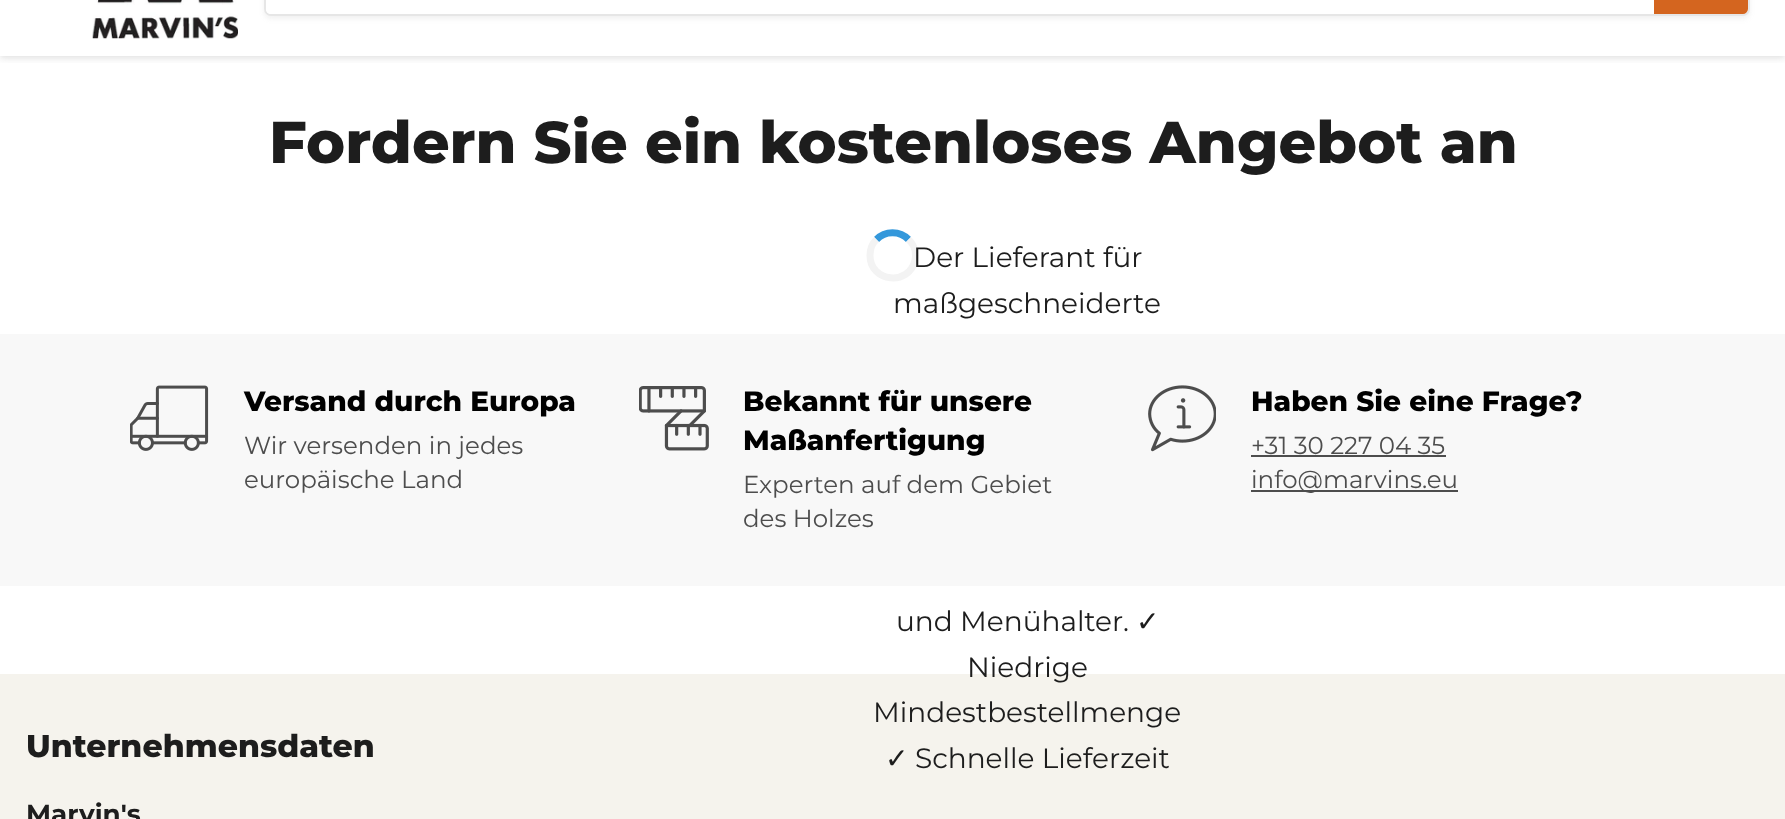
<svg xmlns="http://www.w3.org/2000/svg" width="1785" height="819">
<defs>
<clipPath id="clip1"><rect x="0" y="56" width="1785" height="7"/></clipPath>
<clipPath id="clip2"><path d="M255 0h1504v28h-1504zm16-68h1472c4 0 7 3 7 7v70c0 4-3 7-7 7h-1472c-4 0-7-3-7-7v-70c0-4 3-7 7-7z" clip-rule="evenodd"/></clipPath>
</defs>
<rect width="100%" height="100%" fill="#fff"/>
<g clip-path="url(#clip1)">
<rect y="-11" width="1785" height="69" fill="#80808040" filter="blur(3.5px)"/>
</g>
<image x="92" y="0" width="146" height="39" href="media/1.png"/>
<g clip-path="url(#clip2)">
<rect x="264" y="-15" width="1486" height="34" rx="7" fill="#8080801c" filter="blur(2.5px)"/>
</g>
<rect x="265" y="-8" width="1484" height="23" rx="6" fill="none" stroke="#80808033" stroke-width="2"/>
<path d="M271-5h1383v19h-1383c-3 0-5-2-5-5v-9c0-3 2-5 5-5z" fill="#fff"/>
<path d="M1655-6h88c2 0 4 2 4 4v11c0 2-2 4-4 4h-88z" fill="#d4651f" stroke="#d4651f" stroke-width="2"/>
<rect y="674" width="1785" height="145" fill="#f5f3ed"/>
<text x="26" y="757" style="font-family:Montserrat;font-size:31.5px;font-weight:800;fill:#1d1d1d">Unternehmensdaten</text>
<text x="26" y="823" style="font-family:Montserrat;font-size:26.25px;font-weight:bold;fill:#1d1d1d">Marvin's</text>
<text x="269" y="163" style="font-family:Montserrat;font-size:58.8px;font-weight:800;fill:#1d1d1d">Fordern Sie ein kostenloses Angebot an</text>
<path d="M876.5 239.5c8.5-9 23.5-9 32 0" fill="none" stroke="#3498db" stroke-width="7"/>
<path d="M908.5 239.5c5.5 5 8 13 6.5 20.5c-5.5 26.5-45 22.5-45-4.5c0-6 2-12 6.5-16" fill="none" stroke="#f3f3f3" stroke-width="7"/>
<text x="913" y="267" style="font-family:Montserrat;font-size:28px;fill:#1d1d1d">Der Lieferant für</text>
<text x="893" y="313" style="font-family:Montserrat;font-size:28px;fill:#1d1d1d">maßgeschneiderte</text>
<text x="896" y="631" style="font-family:Montserrat;font-size:28px;fill:#1d1d1d">und Menühalter.</text>
<text x="1136" y="631" style="font-family:DejaVu Sans;font-size:28px;fill:#1d1d1d">✓</text>
<text x="967" y="677" style="font-family:Montserrat;font-size:28px;fill:#1d1d1d">Niedrige</text>
<text x="873" y="722" style="font-family:Montserrat;font-size:28px;fill:#1d1d1d">Mindestbestellmenge</text>
<text x="885" y="768" style="font-family:DejaVu Sans;font-size:28px;fill:#1d1d1d">✓</text>
<text x="915" y="768" style="font-family:Montserrat;font-size:28px;fill:#1d1d1d">Schnelle Lieferzeit</text>
<rect y="334" width="1785" height="252" fill="#f8f8f8"/>
<image x="130" y="385" width="79" height="66" href="media/2.png"/>
<text x="244" y="411" style="font-family:Montserrat;font-size:28px;font-weight:800;fill:#000">Versand durch Europa</text>
<text x="244" y="454" style="font-family:Montserrat;font-size:24.5px;fill:#4d4d4d">Wir versenden in jedes</text>
<text x="244" y="488" style="font-family:Montserrat;font-size:24.5px;fill:#4d4d4d">europäische Land</text>
<image x="639" y="386" width="70" height="65" href="media/3.png"/>
<text x="743" y="411" style="font-family:Montserrat;font-size:28px;font-weight:800;fill:#000">Bekannt für unsere</text>
<text x="743" y="450" style="font-family:Montserrat;font-size:28px;font-weight:800;fill:#000">Maßanfertigung</text>
<text x="743" y="493" style="font-family:Montserrat;font-size:24.5px;fill:#4d4d4d">Experten auf dem Gebiet</text>
<text x="743" y="527" style="font-family:Montserrat;font-size:24.5px;fill:#4d4d4d">des Holzes</text>
<image x="1148" y="385" width="68" height="67" href="media/4.png"/>
<text x="1251" y="411" style="font-family:Montserrat;font-size:28px;font-weight:800;fill:#000">Haben Sie eine Frage?</text>
<text x="1251" y="454" style="font-family:Montserrat;font-size:24.5px;fill:#4d4d4d">+31 30 227 04 35</text>
<rect x="1251" y="455" width="195" height="2" fill="#4d4d4d"/>
<rect x="1251" y="490" width="207" height="2" fill="#4d4d4d"/>
<text x="1251" y="488" style="font-family:Montserrat;font-size:24.5px;fill:#4d4d4d">info@marvins.eu</text>
</svg>
